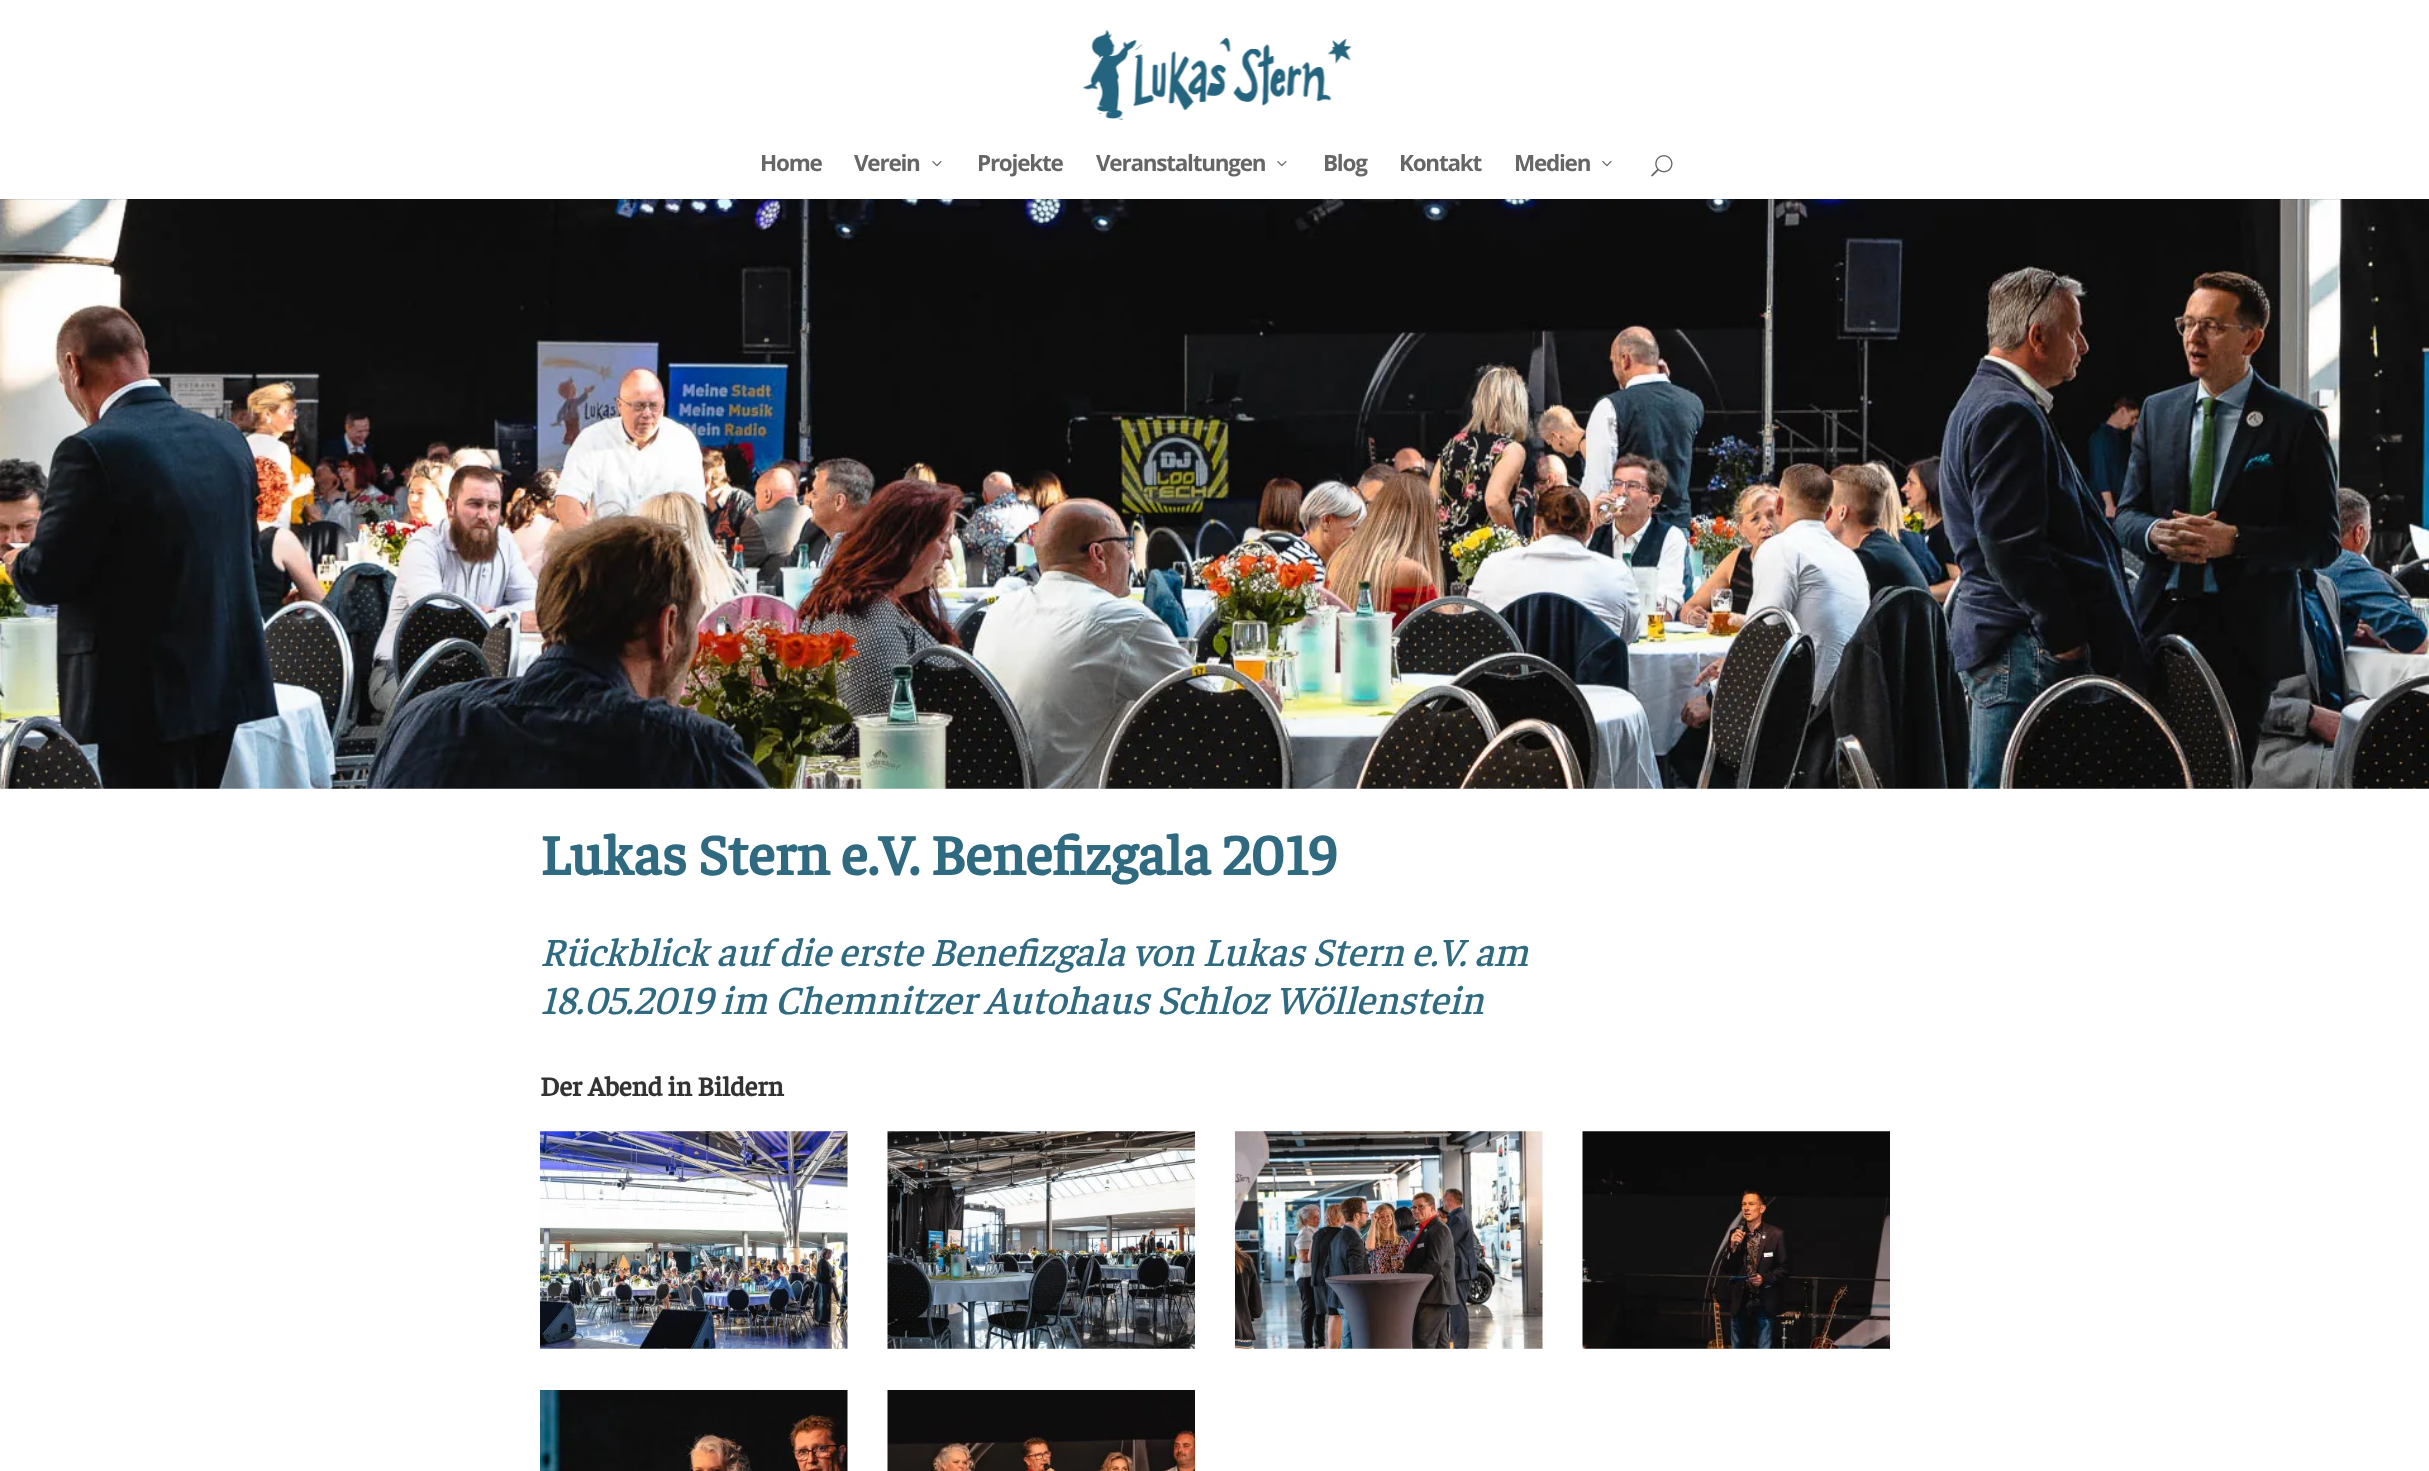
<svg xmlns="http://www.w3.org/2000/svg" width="2429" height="1471">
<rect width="100%" height="100%" fill="#fff"/>
<image x="0" y="199" width="2429" height="590" href="media/4.png"/>
<rect y="199" width="2348" height="1" fill="#0000001a"/>
<image x="1083" y="30" width="269" height="90" href="media/1.png"/>
<text x="760" y="171" style="font-family:Open Sans;font-size:22.5px;font-weight:bold;letter-spacing:-1.25px;fill:#666">Home</text>
<text x="854" y="171" style="font-family:Open Sans;font-size:22.5px;font-weight:bold;letter-spacing:-1.25px;fill:#666">Verein</text>
<image x="932" y="161" width="10" height="6" href="media/2.png"/>
<text x="977" y="171" style="font-family:Open Sans;font-size:22.5px;font-weight:bold;letter-spacing:-1.25px;fill:#666">Projekte</text>
<text x="1096" y="171" style="font-family:Open Sans;font-size:22.5px;font-weight:bold;letter-spacing:-1.25px;fill:#666">Veranstaltungen</text>
<image x="1277" y="161" width="10" height="6" href="media/2.png"/>
<text x="1323" y="171" style="font-family:Open Sans;font-size:22.5px;font-weight:bold;letter-spacing:-1.25px;fill:#666">Blog</text>
<text x="1399" y="171" style="font-family:Open Sans;font-size:22.5px;font-weight:bold;letter-spacing:-1.25px;fill:#666">Kontakt</text>
<text x="1514" y="171" style="font-family:Open Sans;font-size:22.5px;font-weight:bold;letter-spacing:-1.25px;fill:#666">Medien</text>
<image x="1602" y="161" width="10" height="6" href="media/2.png"/>
<image x="1651" y="155" width="22" height="22" href="media/3.png"/>
<text x="540" y="875" style="font-family:Faustina;font-size:57.5px;font-weight:bold;fill:#2f6a80">Lukas Stern e.V. Benefizgala 2019</text>
<text x="540" y="966" style="font-family:Faustina;font-size:40px;font-weight:500;font-style:italic;fill:#2f6a80">Rückblick auf die erste Benefizgala von Lukas Stern e.V. am</text>
<text x="540" y="1014" style="font-family:Faustina;font-size:40px;font-weight:500;font-style:italic;fill:#2f6a80">18.05.2019 im Chemnitzer Autohaus Schloz Wöllenstein</text>
<text x="540" y="1096" style="font-family:Faustina;font-size:27.5px;font-weight:bold;fill:#333">Der Abend in Bildern</text>
<image x="540" y="1131" width="308" height="218" href="media/5.png"/>
<image x="887" y="1131" width="308" height="218" href="media/6.png"/>
<image x="1235" y="1131" width="308" height="218" href="media/7.png"/>
<image x="1582" y="1131" width="308" height="218" href="media/8.png"/>
<image x="540" y="1390" width="308" height="81" href="media/9.png"/>
<image x="887" y="1390" width="308" height="81" href="media/10.png"/>
</svg>
